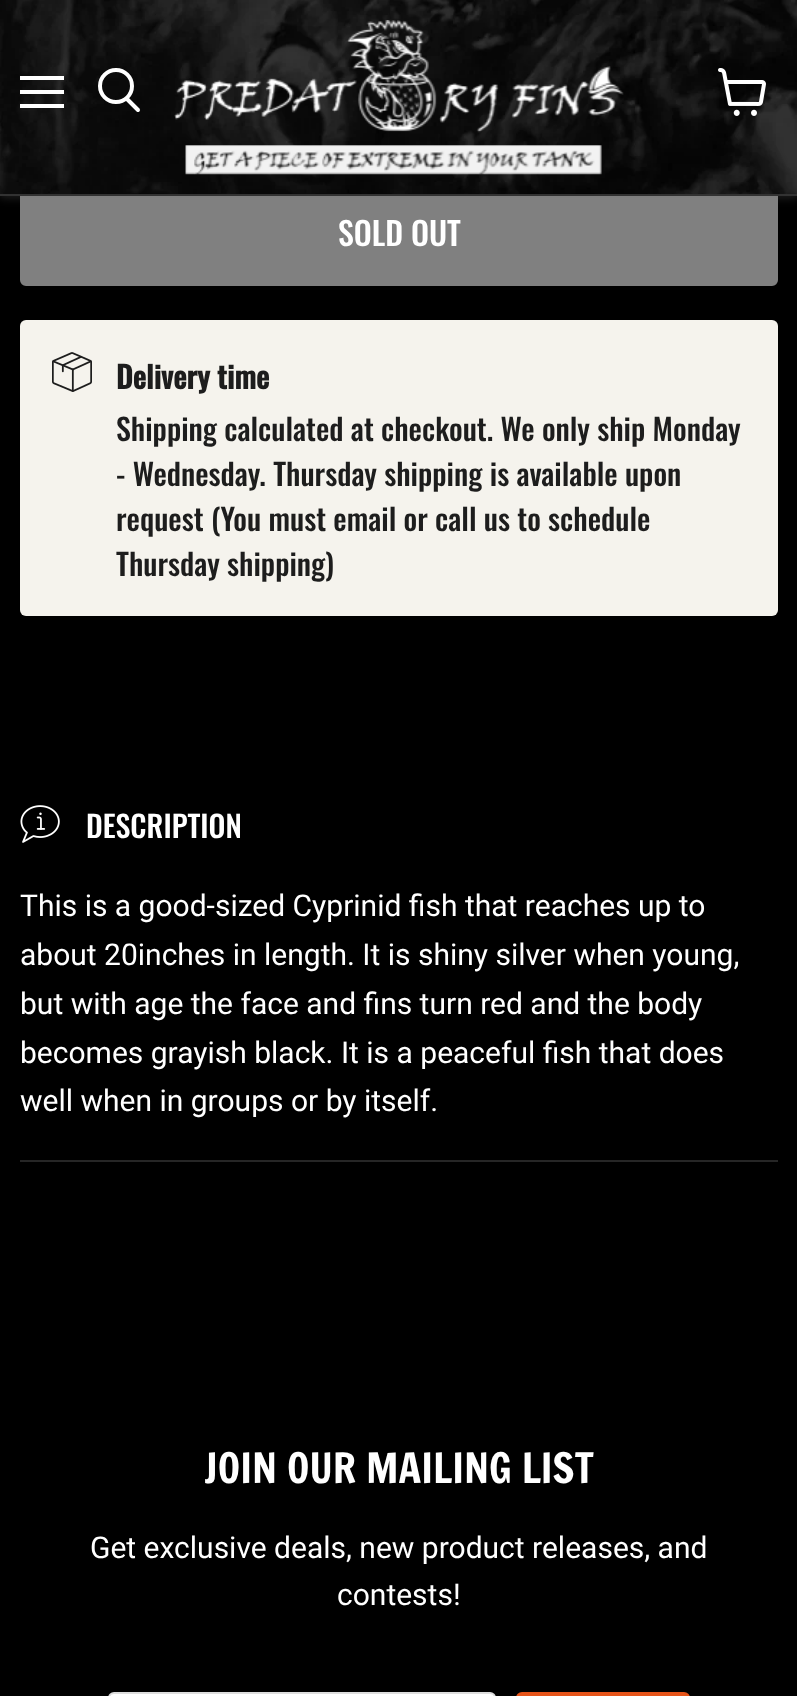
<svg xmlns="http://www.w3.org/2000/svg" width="797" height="1696">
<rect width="100%" height="100%" fill="#000"/>
<rect x="21" y="179" width="756" height="106" rx="5" fill="#808080" stroke="#808080" stroke-width="2"/>
<rect y="2" width="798" height="196" fill="#80808040" filter="blur(4px)"/>
<image x="0" y="0" width="797" height="194" href="media/1.png"/>
<rect y="194" width="797" height="2" fill="#323232"/>
<rect x="20" y="76" width="44" height="4" fill="#fff"/>
<rect x="20" y="90" width="44" height="4" fill="#fff"/>
<rect x="20" y="104" width="44" height="4" fill="#fff"/>
<path d="M138 110l-11-11" fill="none" stroke="#fff" stroke-width="4" stroke-linecap="round"/>
<circle cx="116" cy="86" r="16" fill="none" stroke="#fff" stroke-width="4"/>
<image x="174" y="20" width="450" height="155" href="media/2.png"/>
<image x="718" y="68" width="48" height="48" href="media/3.png"/>
<text x="338" y="246" style="font-family:Oswald;font-size:32px;font-weight:500;fill:#fff">SOLD OUT</text>
<rect x="20" y="320" width="758" height="296" rx="6" fill="#f5f3ed"/>
<image x="52" y="352" width="40" height="40" href="media/4.png"/>
<text x="116" y="389" style="font-family:Oswald;font-size:30px;font-weight:bold;fill:#1d1d1d">Delivery time</text>
<text x="116" y="441" style="font-family:Oswald;font-size:30px;font-weight:500;fill:#1d1d1d">Shipping calculated at checkout. We only ship Monday</text>
<text x="116" y="486" style="font-family:Oswald;font-size:30px;font-weight:500;fill:#1d1d1d">- Wednesday. Thursday shipping is available upon</text>
<text x="116" y="531" style="font-family:Oswald;font-size:30px;font-weight:500;fill:#1d1d1d">request (You must email or call us to schedule</text>
<text x="116" y="576" style="font-family:Oswald;font-size:30px;font-weight:500;fill:#1d1d1d">Thursday shipping)</text>
<rect x="20" y="1160" width="758" height="2" fill="#262626"/>
<image x="20" y="805" width="40" height="38" href="media/5.png"/>
<text x="86" y="838" style="font-family:Oswald;font-size:30px;font-weight:500;fill:#fff">DESCRIPTION</text>
<text x="20" y="916" style="font-family:Roboto;font-size:30px;fill:#fff">This is a good-sized Cyprinid fish that reaches up to</text>
<text x="20" y="965" style="font-family:Roboto;font-size:30px;fill:#fff">about 20inches in length. It is shiny silver when young,</text>
<text x="20" y="1014" style="font-family:Roboto;font-size:30px;fill:#fff">but with age the face and fins turn red and the body</text>
<text x="20" y="1063" style="font-family:Roboto;font-size:30px;fill:#fff">becomes grayish black. It is a peaceful fish that does</text>
<text x="20" y="1111" style="font-family:Roboto;font-size:30px;fill:#fff">well when in groups or by itself.</text>
<text x="204" y="1483" style="font-family:Francois One;font-size:41px;fill:#fff">JOIN OUR MAILING LIST</text>
<text x="90" y="1558" style="font-family:Roboto;font-size:30px;fill:#fff">Get exclusive deals, new product releases, and</text>
<text x="337" y="1605" style="font-family:Roboto;font-size:30px;fill:#fff">contests!</text>
<rect x="109" y="1693" width="386" height="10" rx="5" fill="#fff" stroke="#ddd" stroke-width="2"/>
<rect x="517" y="1693" width="172" height="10" rx="5" fill="#e65419" stroke="#e65419" stroke-width="2"/>
</svg>
